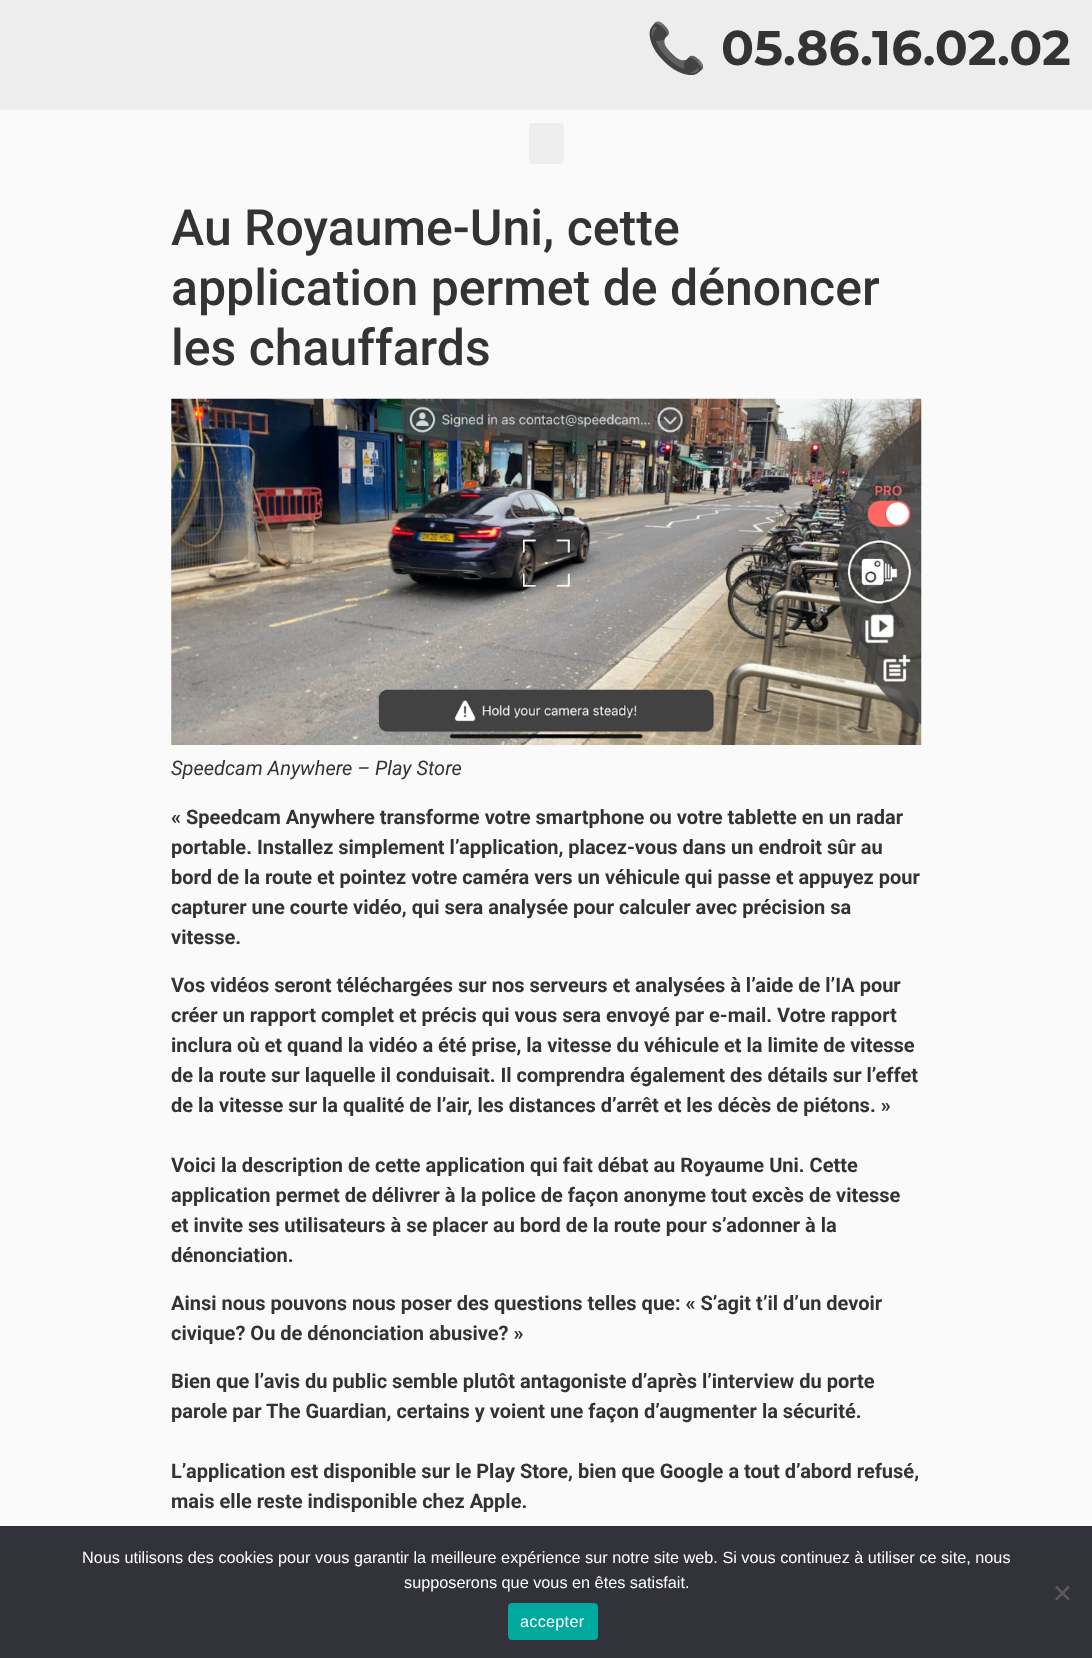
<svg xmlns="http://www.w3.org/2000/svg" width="1092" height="1658">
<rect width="100%" height="100%" fill="#fafafa"/>
<rect width="1092" height="110" fill="#ededed"/>
<text x="646" y="65" style="font-family:Noto Color Emoji;font-size:48.75px;font-weight:bold;fill:#333">📞</text>
<text x="721" y="65" style="font-family:Montserrat;font-size:48.75px;font-weight:bold;fill:#333">05.86.16.02.02</text>
<rect x="529" y="123" width="35" height="41" rx="4" fill="#eee"/>
<text x="171" y="245" style="font-family:Roboto;font-size:50px;font-weight:500;fill:#333">Au Royaume-Uni, cette</text>
<text x="171" y="305" style="font-family:Roboto;font-size:50px;font-weight:500;fill:#333">application permet de dénoncer</text>
<text x="171" y="365" style="font-family:Roboto;font-size:50px;font-weight:500;fill:#333">les chauffards</text>
<image x="171" y="398" width="751" height="347" href="media/1.png"/>
<text x="171" y="775" style="font-family:Roboto;font-size:20px;font-style:italic;fill:#333">Speedcam Anywhere – Play Store</text>
<text x="171" y="824" style="font-family:Roboto;font-size:20px;font-weight:bold;fill:#333">« Speedcam Anywhere transforme votre smartphone ou votre tablette en un radar</text>
<text x="171" y="854" style="font-family:Roboto;font-size:20px;font-weight:bold;fill:#333">portable. Installez simplement l’application, placez-vous dans un endroit sûr au</text>
<text x="171" y="884" style="font-family:Roboto;font-size:20px;font-weight:bold;fill:#333">bord de la route et pointez votre caméra vers un véhicule qui passe et appuyez pour</text>
<text x="171" y="914" style="font-family:Roboto;font-size:20px;font-weight:bold;fill:#333">capturer une courte vidéo, qui sera analysée pour calculer avec précision sa</text>
<text x="171" y="944" style="font-family:Roboto;font-size:20px;font-weight:bold;fill:#333">vitesse.</text>
<text x="171" y="992" style="font-family:Roboto;font-size:20px;font-weight:bold;fill:#333">Vos vidéos seront téléchargées sur nos serveurs et analysées à l’aide de l’IA pour</text>
<text x="171" y="1022" style="font-family:Roboto;font-size:20px;font-weight:bold;fill:#333">créer un rapport complet et précis qui vous sera envoyé par e-mail. Votre rapport</text>
<text x="171" y="1052" style="font-family:Roboto;font-size:20px;font-weight:bold;fill:#333">inclura où et quand la vidéo a été prise, la vitesse du véhicule et la limite de vitesse</text>
<text x="171" y="1082" style="font-family:Roboto;font-size:20px;font-weight:bold;fill:#333">de la route sur laquelle il conduisait. Il comprendra également des détails sur l’effet</text>
<text x="171" y="1112" style="font-family:Roboto;font-size:20px;font-weight:bold;fill:#333">de la vitesse sur la qualité de l’air, les distances d’arrêt et les décès de piétons. »</text>
<text x="171" y="1172" style="font-family:Roboto;font-size:20px;font-weight:bold;fill:#333">Voici la description de cette application qui fait débat au Royaume Uni. Cette</text>
<text x="171" y="1202" style="font-family:Roboto;font-size:20px;font-weight:bold;fill:#333">application permet de délivrer à la police de façon anonyme tout excès de vitesse</text>
<text x="171" y="1232" style="font-family:Roboto;font-size:20px;font-weight:bold;fill:#333">et invite ses utilisateurs à se placer au bord de la route pour s’adonner à la</text>
<text x="171" y="1262" style="font-family:Roboto;font-size:20px;font-weight:bold;fill:#333">dénonciation.</text>
<text x="171" y="1310" style="font-family:Roboto;font-size:20px;font-weight:bold;fill:#333">Ainsi nous pouvons nous poser des questions telles que: « S’agit t’il d’un devoir</text>
<text x="171" y="1340" style="font-family:Roboto;font-size:20px;font-weight:bold;fill:#333">civique? Ou de dénonciation abusive? »</text>
<text x="171" y="1388" style="font-family:Roboto;font-size:20px;font-weight:bold;fill:#333">Bien que l’avis du public semble plutôt antagoniste d’après l’interview du porte</text>
<text x="171" y="1418" style="font-family:Roboto;font-size:20px;font-weight:bold;fill:#333">parole par The Guardian, certains y voient une façon d’augmenter la sécurité.</text>
<text x="171" y="1478" style="font-family:Roboto;font-size:20px;font-weight:bold;fill:#333">L’application est disponible sur le Play Store, bien que Google a tout d’abord refusé,</text>
<text x="171" y="1508" style="font-family:Roboto;font-size:20px;font-weight:bold;fill:#333">mais elle reste indisponible chez Apple.</text>
<rect y="1526" width="1092" height="132" fill="#32323a"/>
<text x="82" y="1563" style="font-family:Liberation Sans;font-size:16.25px;fill:#fff">Nous utilisons des cookies pour vous garantir la meilleure expérience sur notre site web. Si vous continuez à utiliser ce site, nous</text>
<text x="404" y="1588" style="font-family:Liberation Sans;font-size:16.25px;fill:#fff">supposerons que vous en êtes satisfait.</text>
<path d="M1068 1585.5l2 2l-13 13l-2-1.5z" fill="#59595d"/>
<path d="M1055 1587.5l2-2l13 13.5l-2 1.5z" fill="#59595d"/>
<rect x="508" y="1603" width="90" height="37" rx="4" fill="#00a99d"/>
<text x="520" y="1627" style="font-family:Liberation Sans;font-size:16.25px;letter-spacing:0.25px;fill:#fff">accepter</text>
</svg>
